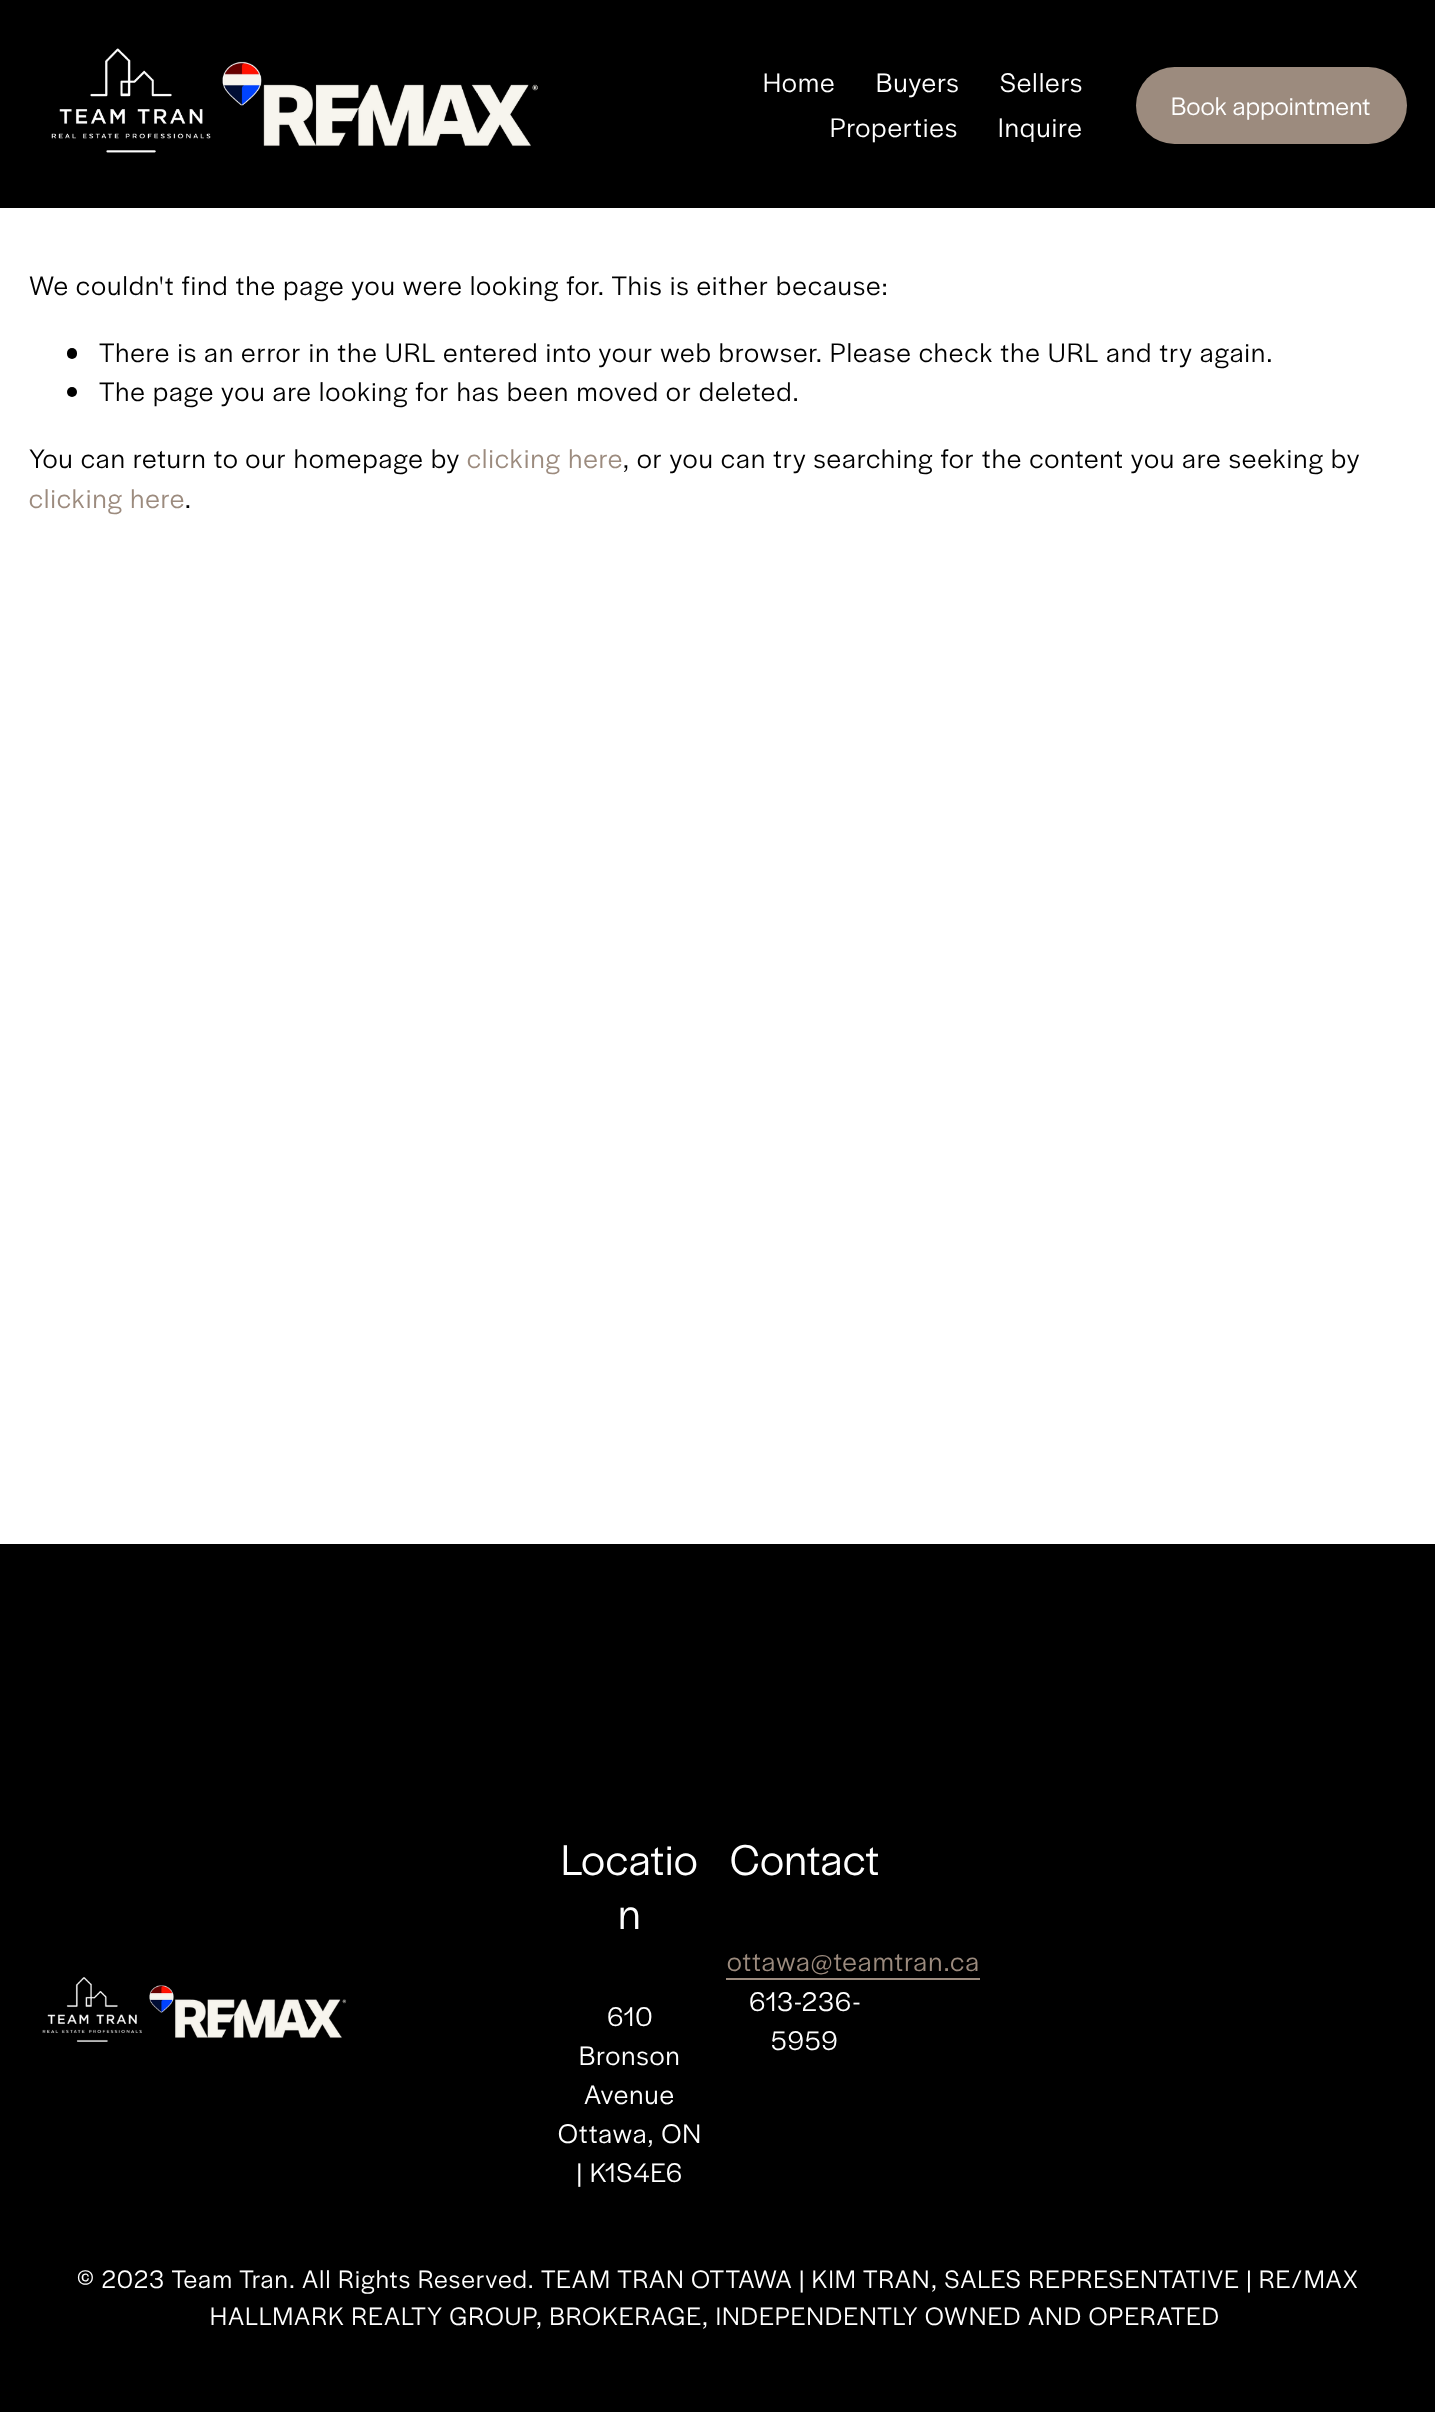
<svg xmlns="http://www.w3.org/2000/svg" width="1435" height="2412">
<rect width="100%" height="100%" fill="#fff"/>
<rect width="1435" height="208" fill="#000"/>
<image x="51" y="48" width="487" height="105" href="media/1.png"/>
<text x="763" y="92" style="font-family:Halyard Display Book;font-size:28px;letter-spacing:1.4px;fill:#fff">Home</text>
<text x="876" y="92" style="font-family:Halyard Display Book;font-size:28px;letter-spacing:1.4px;fill:#fff">Buyers</text>
<text x="1000" y="92" style="font-family:Halyard Display Book;font-size:28px;letter-spacing:1.4px;fill:#fff">Sellers</text>
<text x="830" y="137" style="font-family:Halyard Display Book;font-size:28px;letter-spacing:1.4px;fill:#fff">Properties</text>
<text x="998" y="137" style="font-family:Halyard Display Book;font-size:28px;letter-spacing:1.4px;fill:#fff">Inquire</text>
<rect x="1136" y="67" width="271" height="77" rx="38.5" fill="#9c8b7e"/>
<text x="1171" y="115" style="font-family:Halyard Display Book;font-size:26.3px;letter-spacing:0.5px;fill:#fff">Book appointment</text>
<text x="29" y="295" style="font-family:Halyard Display Book;font-size:28px;letter-spacing:1.4px;fill:#000">We couldn't find the page you were looking for. This is either because:</text>
<rect x="67" y="348" width="10" height="11" rx="5" fill="#000"/>
<text x="99" y="362" style="font-family:Halyard Display Book;font-size:28px;letter-spacing:1.4px;fill:#000">There is an error in the URL entered into your web browser. Please check the URL and try again.</text>
<circle cx="72" cy="392" r="5" fill="#000"/>
<text x="99" y="401" style="font-family:Halyard Display Book;font-size:28px;letter-spacing:1.4px;fill:#000">The page you are looking for has been moved or deleted.</text>
<text x="29" y="468" style="font-family:Halyard Display Book;font-size:28px;letter-spacing:1.4px;fill:#000">You can return to our homepage by</text>
<text x="467" y="468" style="font-family:Halyard Display Book;font-size:28px;letter-spacing:1.4px;fill:#9c8b7e">clicking here</text>
<text x="623" y="468" style="font-family:Halyard Display Book;font-size:28px;letter-spacing:1.4px;fill:#000">, or you can try searching for the content you are seeking by</text>
<text x="29" y="508" style="font-family:Halyard Display Book;font-size:28px;letter-spacing:1.4px;fill:#9c8b7e">clicking here</text>
<text x="185" y="508" style="font-family:Halyard Display Book;font-size:28px;letter-spacing:1.4px;fill:#000">.</text>
<rect y="1544" width="1435" height="868" fill="#000"/>
<image x="42" y="1977" width="305" height="65" href="media/2.png"/>
<text x="561" y="1875" style="font-family:Halyard Display Book;font-size:45px;letter-spacing:1px;fill:#fff">Locatio</text>
<text x="618" y="1929" style="font-family:Halyard Display Book;font-size:45px;letter-spacing:1px;fill:#fff">n</text>
<text x="607" y="2026" style="font-family:Halyard Display Book;font-size:28px;letter-spacing:1.4px;fill:#fff">610</text>
<text x="579" y="2065" style="font-family:Halyard Display Book;font-size:28px;letter-spacing:1.4px;fill:#fff">Bronson</text>
<text x="584" y="2104" style="font-family:Halyard Display Book;font-size:28px;letter-spacing:1.4px;fill:#fff">Avenue</text>
<text x="558" y="2143" style="font-family:Halyard Display Book;font-size:28px;letter-spacing:1.4px;fill:#fff">Ottawa, ON</text>
<text x="577" y="2182" style="font-family:Halyard Display Book;font-size:28px;letter-spacing:1.4px;fill:#fff">| K1S4E6</text>
<text x="730" y="1875" style="font-family:Halyard Display Book;font-size:45px;letter-spacing:1px;fill:#fff">Contact</text>
<text x="727" y="1971" style="font-family:Halyard Display Book;font-size:28px;letter-spacing:1.4px;fill:#9c8b7e">ottawa@teamtran.ca</text>
<rect x="726" y="1978" width="254" height="2" fill="#9c8b7e"/>
<text x="749" y="2011" style="font-family:Halyard Display Book;font-size:28px;letter-spacing:1.4px;fill:#fff">613-236-</text>
<text x="771" y="2050" style="font-family:Halyard Display Book;font-size:28px;letter-spacing:1.4px;fill:#fff">5959</text>
<text x="77" y="2288" style="font-family:Halyard Display Book;font-size:26.3px;letter-spacing:1.4px;fill:#fff">© 2023 Team Tran. All Rights Reserved. TEAM TRAN OTTAWA | KIM TRAN, SALES REPRESENTATIVE | RE/MAX</text>
<text x="210" y="2325" style="font-family:Halyard Display Book;font-size:26.3px;letter-spacing:1.4px;fill:#fff">HALLMARK REALTY GROUP, BROKERAGE, INDEPENDENTLY OWNED AND OPERATED</text>
</svg>
